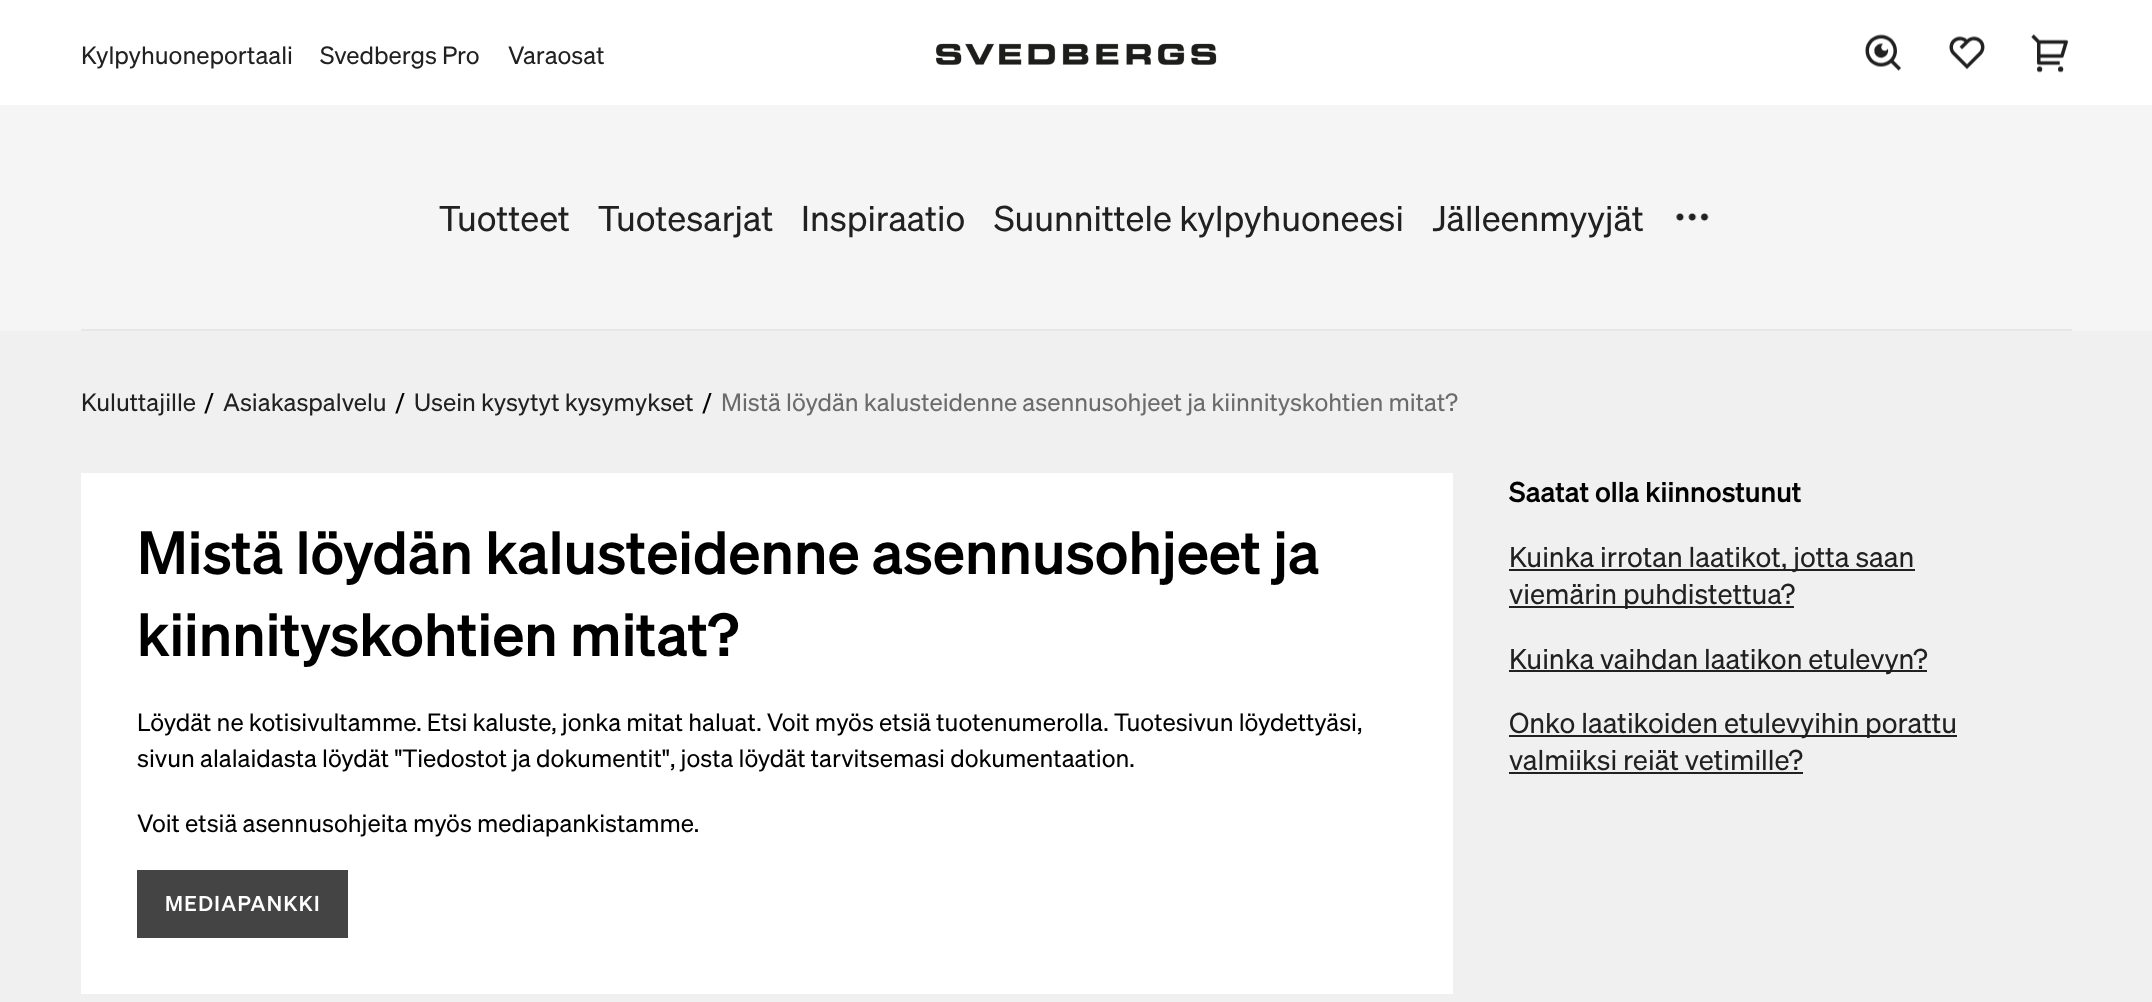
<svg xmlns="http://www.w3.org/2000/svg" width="2152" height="1002">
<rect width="100%" height="100%" fill="#f0f0f0"/>
<rect width="2152" height="105" fill="#fff"/>
<text x="81" y="64" style="font-family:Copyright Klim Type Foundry;font-size:24.5px;fill:#212121">Kylpyhuoneportaali</text>
<text x="320" y="64" style="font-family:Copyright Klim Type Foundry;font-size:24.5px;fill:#212121">Svedbergs Pro</text>
<text x="508" y="64" style="font-family:Copyright Klim Type Foundry;font-size:24.5px;fill:#212121">Varaosat</text>
<image x="936" y="43" width="281" height="22" href="media/1.png"/>
<image x="1865" y="34" width="36" height="37" href="media/2.png"/>
<image x="1949" y="36" width="36" height="34" href="media/3.png"/>
<image x="2031" y="34" width="37" height="39" href="media/4.png"/>
<rect y="105" width="2152" height="226" fill="#f5f5f5"/>
<rect x="81" y="329" width="1991" height="2" fill="#e7e7e7"/>
<text x="439" y="231" style="font-family:Copyright Klim Type Foundry;font-size:35px;fill:#212121">Tuotteet</text>
<text x="598" y="231" style="font-family:Copyright Klim Type Foundry;font-size:35px;fill:#212121">Tuotesarjat</text>
<text x="801" y="231" style="font-family:Copyright Klim Type Foundry;font-size:35px;fill:#212121">Inspiraatio</text>
<text x="994" y="231" style="font-family:Copyright Klim Type Foundry;font-size:35px;fill:#212121">Suunnittele kylpyhuoneesi</text>
<text x="1432" y="231" style="font-family:Copyright Klim Type Foundry;font-size:35px;fill:#212121">Jälleenmyyjät</text>
<image x="1676" y="213" width="33" height="8" href="media/5.png"/>
<text x="81" y="411" style="font-family:Copyright Klim Type Foundry;font-size:24.5px;fill:#212121">Kuluttajille</text>
<text x="204" y="411" style="font-family:Copyright Klim Type Foundry;font-size:24.5px;fill:#000">/</text>
<text x="223" y="411" style="font-family:Copyright Klim Type Foundry;font-size:24.5px;fill:#212121">Asiakaspalvelu</text>
<text x="395" y="411" style="font-family:Copyright Klim Type Foundry;font-size:24.5px;fill:#000">/</text>
<text x="414" y="411" style="font-family:Copyright Klim Type Foundry;font-size:24.5px;fill:#212121">Usein kysytyt kysymykset</text>
<text x="702" y="411" style="font-family:Copyright Klim Type Foundry;font-size:24.5px;fill:#000">/</text>
<text x="721" y="411" style="font-family:Copyright Klim Type Foundry;font-size:24.5px;fill:#6b6b6b">Mistä löydän kalusteidenne asennusohjeet ja kiinnityskohtien mitat?</text>
<rect x="81" y="473" width="1372" height="521" fill="#fff"/>
<text x="137" y="574" style="font-family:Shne;font-size:59.5px;font-weight:500;fill:#000">Mistä löydän kalusteidenne asennusohjeet ja</text>
<text x="137" y="656" style="font-family:Shne;font-size:59.5px;font-weight:500;fill:#000">kiinnityskohtien mitat?</text>
<text x="137" y="731" style="font-family:Copyright Klim Type Foundry;font-size:24.5px;fill:#000">Löydät ne kotisivultamme. Etsi kaluste, jonka mitat haluat. Voit myös etsiä tuotenumerolla. Tuotesivun löydettyäsi,</text>
<text x="137" y="767" style="font-family:Copyright Klim Type Foundry;font-size:24.5px;fill:#000">sivun alalaidasta löydät "Tiedostot ja dokumentit", josta löydät tarvitsemasi dokumentaation.</text>
<text x="137" y="832" style="font-family:Copyright Klim Type Foundry;font-size:24.5px;fill:#000">Voit etsiä asennusohjeita myös mediapankistamme.</text>
<rect x="137" y="870" width="211" height="68" fill="#444"/>
<text x="165" y="911" style="font-family:Shne;font-size:21px;font-weight:500;letter-spacing:1.4px;fill:#fff">MEDIAPANKKI</text>
<text x="1509" y="502" style="font-family:Shne;font-size:28px;font-weight:500;fill:#000">Saatat olla kiinnostunut</text>
<rect x="1509" y="569" width="406" height="2" fill="#212121"/>
<text x="1509" y="567" style="font-family:Copyright Klim Type Foundry;font-size:28px;fill:#212121">Kuinka irrotan laatikot, jotta saan</text>
<rect x="1509" y="606" width="285" height="2" fill="#212121"/>
<text x="1509" y="604" style="font-family:Copyright Klim Type Foundry;font-size:28px;fill:#212121">viemärin puhdistettua?</text>
<rect x="1509" y="670" width="418" height="2" fill="#212121"/>
<text x="1509" y="669" style="font-family:Copyright Klim Type Foundry;font-size:28px;fill:#212121">Kuinka vaihdan laatikon etulevyn?</text>
<rect x="1509" y="735" width="448" height="2" fill="#212121"/>
<text x="1509" y="733" style="font-family:Copyright Klim Type Foundry;font-size:28px;fill:#212121">Onko laatikoiden etulevyihin porattu</text>
<text x="1509" y="770" style="font-family:Copyright Klim Type Foundry;font-size:28px;fill:#212121">valmiiksi reiät vetimille?</text>
<rect x="1509" y="772" width="294" height="2" fill="#212121"/>
</svg>
